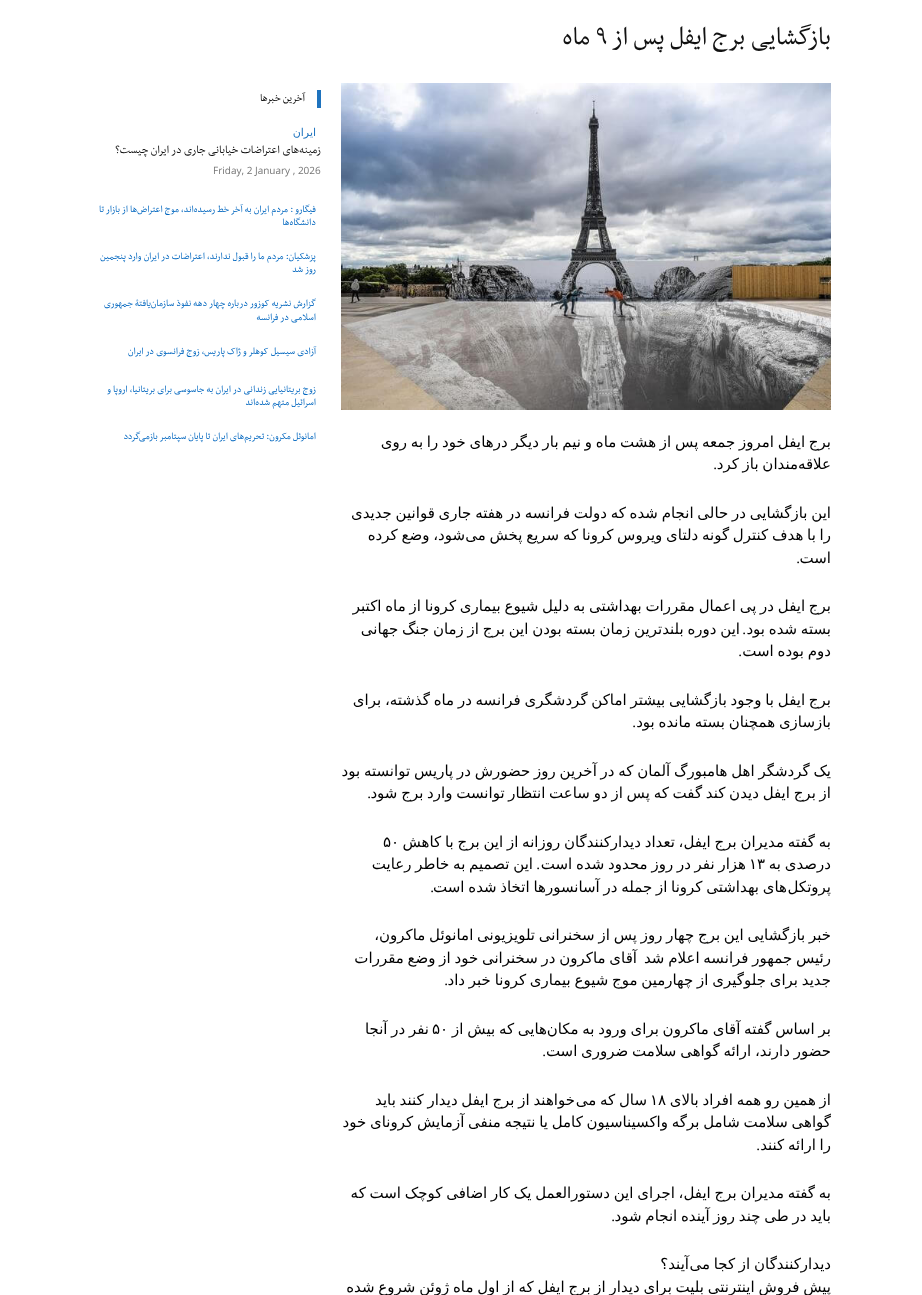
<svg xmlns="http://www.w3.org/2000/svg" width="922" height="1295">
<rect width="100%" height="100%" fill="#fff"/>
<text x="831" y="44" style="font-family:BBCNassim;font-size:29px;direction:rtl;fill:#111">بازگشایی برج ایفل پس از</text>
<text x="596" y="44" style="font-family:BBCNassim;font-size:29px;fill:#111">۹</text>
<text x="590" y="44" style="font-family:BBCNassim;font-size:29px;direction:rtl;fill:#111">ماه</text>
<rect x="317" y="90" width="4" height="18" fill="#1e73be"/>
<text x="305" y="101" style="font-family:BBCNassim;font-size:12px;direction:rtl;fill:#000">آخرین خبرها</text>
<text x="316" y="136" style="font-family:DejaVu Sans;font-size:11px;direction:rtl;fill:#1e73be">ایران</text>
<text x="321" y="153" style="font-family:BBCNassim;font-size:13px;direction:rtl;fill:#111">زمینه‌های اعتراضات خیابانی جاری در ایران چیست؟</text>
<text x="213" y="174" style="font-family:Open Sans;font-size:10px;fill:#767676">Friday, 2 January , 2026</text>
<text x="316" y="212" style="font-family:BBCNassim;font-size:11px;direction:rtl;fill:#0066bf">فیگارو : مردم ایران به آخر خط رسیده‌اند، موج اعتراض‌ها از بازار تا</text>
<text x="316" y="225" style="font-family:BBCNassim;font-size:11px;direction:rtl;fill:#0066bf">دانشگاه‌ها</text>
<text x="316" y="259" style="font-family:BBCNassim;font-size:11px;direction:rtl;fill:#0066bf">پزشکیان: مردم ما را قبول ندارند، اعتراضات در ایران وارد پنجمین</text>
<text x="316" y="272" style="font-family:BBCNassim;font-size:11px;direction:rtl;fill:#0066bf">روز شد</text>
<text x="316" y="306" style="font-family:BBCNassim;font-size:11px;direction:rtl;fill:#0066bf">گزارش نشریه کوزور درباره چهار دهه نفوذ سازمان‌یافتۀ جمهوری</text>
<text x="316" y="320" style="font-family:BBCNassim;font-size:11px;direction:rtl;fill:#0066bf">اسلامی در فرانسه</text>
<text x="316" y="354" style="font-family:BBCNassim;font-size:11px;direction:rtl;fill:#0066bf">آزادی سیسیل کوهلر و ژاک پاریس، زوج فرانسوی در ایران</text>
<text x="316" y="392" style="font-family:BBCNassim;font-size:11px;direction:rtl;fill:#0066bf">زوج بریتانیایی زندانی در ایران به جاسوسی برای بریتانیا، اروپا و</text>
<text x="316" y="405" style="font-family:BBCNassim;font-size:11px;direction:rtl;fill:#0066bf">اسرائیل متهم شده‌اند</text>
<text x="316" y="439" style="font-family:BBCNassim;font-size:11px;direction:rtl;fill:#0066bf">امانوئل مکرون: تحریم‌های ایران تا پایان سپتامبر بازمی‌گردد</text>
<image x="341" y="83" width="490" height="327" href="media/1.png"/>
<text x="831" y="447" word-spacing="-1" style="font-family:DejaVu Sans;font-size:15px;direction:rtl;fill:#000">برج ایفل امروز جمعه پس از هشت ماه و نیم بار دیگر درهای خود را به روی</text>
<text x="798" y="469" word-spacing="-1" style="font-family:DejaVu Sans;font-size:15px;direction:rtl;fill:#000">مندان باز کرد</text>
<text x="831" y="469" style="font-family:DejaVu Sans;font-size:15px;direction:rtl;fill:#000">علاقه</text>
<text x="717" y="469" style="font-family:Liberation Serif;font-size:15px;direction:rtl;fill:#000">.</text>
<text x="831" y="518" word-spacing="-1" style="font-family:DejaVu Sans;font-size:15px;direction:rtl;fill:#000">این بازگشایی در حالی انجام شده که دولت فرانسه در هفته جاری قوانین جدیدی</text>
<text x="465" y="540" word-spacing="-1" style="font-family:DejaVu Sans;font-size:15px;direction:rtl;fill:#000">شود، وضع کرده</text>
<text x="831" y="540" word-spacing="-1" style="font-family:DejaVu Sans;font-size:15px;direction:rtl;fill:#000">را با هدف کنترل گونه دلتای ویروس کرونا که سریع پخش می</text>
<text x="831" y="563" style="font-family:DejaVu Sans;font-size:15px;direction:rtl;fill:#000">است</text>
<text x="800" y="563" style="font-family:Liberation Serif;font-size:15px;direction:rtl;fill:#000">.</text>
<text x="831" y="611" word-spacing="-1" style="font-family:DejaVu Sans;font-size:15px;direction:rtl;fill:#000">برج ایفل در پی اعمال مقررات بهداشتی به دلیل شیوع بیماری کرونا از ماه اکتبر</text>
<text x="831" y="634" word-spacing="-1" style="font-family:DejaVu Sans;font-size:15px;direction:rtl;fill:#000">بسته شده بود</text>
<text x="740" y="634" word-spacing="-1" style="font-family:DejaVu Sans;font-size:15px;direction:rtl;fill:#000">این دوره بلندترین زمان بسته بودن این برج از زمان جنگ جهانی</text>
<text x="746" y="634" style="font-family:Liberation Serif;font-size:15px;direction:rtl;fill:#000">.</text>
<text x="831" y="656" word-spacing="-1" style="font-family:DejaVu Sans;font-size:15px;direction:rtl;fill:#000">دوم بوده است</text>
<text x="742" y="656" style="font-family:Liberation Serif;font-size:15px;direction:rtl;fill:#000">.</text>
<text x="831" y="705" word-spacing="-1" style="font-family:DejaVu Sans;font-size:15px;direction:rtl;fill:#000">برج ایفل با وجود بازگشایی بیشتر اماکن گردشگری فرانسه در ماه گذشته، برای</text>
<text x="831" y="727" word-spacing="-1" style="font-family:DejaVu Sans;font-size:15px;direction:rtl;fill:#000">بازسازی همچنان بسته مانده بود</text>
<text x="636" y="727" style="font-family:Liberation Serif;font-size:15px;direction:rtl;fill:#000">.</text>
<text x="831" y="776" word-spacing="-1" style="font-family:DejaVu Sans;font-size:15px;direction:rtl;fill:#000">یک گردشگر اهل هامبورگ آلمان که در آخرین روز حضورش در پاریس توانسته بود</text>
<text x="831" y="798" word-spacing="-1" style="font-family:DejaVu Sans;font-size:15px;direction:rtl;fill:#000">از برج ایفل دیدن کند گفت که پس از دو ساعت انتظار توانست وارد برج شود</text>
<text x="371" y="798" style="font-family:Liberation Serif;font-size:15px;direction:rtl;fill:#000">.</text>
<text x="831" y="847" word-spacing="-1" style="font-family:DejaVu Sans;font-size:15px;direction:rtl;fill:#000">به گفته مدیران برج ایفل، تعداد دیدارکنندگان روزانه از این برج با کاهش</text>
<text x="383" y="847" style="font-family:DejaVu Sans;font-size:15px;fill:#000">۵۰</text>
<text x="831" y="869" word-spacing="-1" style="font-family:DejaVu Sans;font-size:15px;direction:rtl;fill:#000">درصدی به</text>
<text x="746" y="869" word-spacing="-1" style="font-family:DejaVu Sans;font-size:15px;direction:rtl;fill:#000">هزار نفر در روز محدود شده است</text>
<text x="749" y="869" style="font-family:DejaVu Sans;font-size:15px;fill:#000">۱۳</text>
<text x="540" y="869" style="font-family:Liberation Serif;font-size:15px;direction:rtl;fill:#000">.</text>
<text x="533" y="869" word-spacing="-1" style="font-family:DejaVu Sans;font-size:15px;direction:rtl;fill:#000">این تصمیم به خاطر رعایت</text>
<text x="787" y="892" word-spacing="-1" style="font-family:DejaVu Sans;font-size:15px;direction:rtl;fill:#000">های بهداشتی کرونا از جمله در آسانسورها اتخاذ شده است</text>
<text x="831" y="892" style="font-family:DejaVu Sans;font-size:15px;direction:rtl;fill:#000">پروتکل</text>
<text x="434" y="892" style="font-family:Liberation Serif;font-size:15px;direction:rtl;fill:#000">.</text>
<text x="831" y="940" word-spacing="-1" style="font-family:DejaVu Sans;font-size:15px;direction:rtl;fill:#000">خبر بازگشایی این برج چهار روز پس از سخنرانی تلویزیونی امانوئل ماکرون،</text>
<text x="637" y="963" word-spacing="-1" style="font-family:DejaVu Sans;font-size:15px;direction:rtl;fill:#000">آقای ماکرون در سخنرانی خود از وضع مقررات</text>
<text x="831" y="963" word-spacing="-1" style="font-family:DejaVu Sans;font-size:15px;direction:rtl;fill:#000">رئیس جمهور فرانسه اعلام شد</text>
<text x="831" y="985" word-spacing="-1" style="font-family:DejaVu Sans;font-size:15px;direction:rtl;fill:#000">جدید برای جلوگیری از چهارمین موج شیوع بیماری کرونا خبر داد</text>
<text x="448" y="985" style="font-family:Liberation Serif;font-size:15px;direction:rtl;fill:#000">.</text>
<text x="547" y="1034" word-spacing="-1" style="font-family:DejaVu Sans;font-size:15px;direction:rtl;fill:#000">هایی که بیش از</text>
<text x="831" y="1034" word-spacing="-1" style="font-family:DejaVu Sans;font-size:15px;direction:rtl;fill:#000">بر اساس گفته آقای ماکرون برای ورود به مکان</text>
<text x="432" y="1034" style="font-family:DejaVu Sans;font-size:15px;fill:#000">۵۰</text>
<text x="429" y="1034" word-spacing="-1" style="font-family:DejaVu Sans;font-size:15px;direction:rtl;fill:#000">نفر در آنجا</text>
<text x="831" y="1056" word-spacing="-1" style="font-family:DejaVu Sans;font-size:15px;direction:rtl;fill:#000">حضور دارند، ارائه گواهی سلامت ضروری است</text>
<text x="546" y="1056" style="font-family:Liberation Serif;font-size:15px;direction:rtl;fill:#000">.</text>
<text x="831" y="1105" word-spacing="-1" style="font-family:DejaVu Sans;font-size:15px;direction:rtl;fill:#000">از همین رو همه</text>
<text x="733" y="1105" word-spacing="-1" style="font-family:DejaVu Sans;font-size:15px;direction:rtl;fill:#000">افراد بالای</text>
<text x="650" y="1105" style="font-family:DejaVu Sans;font-size:15px;fill:#000">۱۸</text>
<text x="575" y="1105" word-spacing="-1" style="font-family:DejaVu Sans;font-size:15px;direction:rtl;fill:#000">خواهند از برج ایفل دیدار کنند باید</text>
<text x="647" y="1105" word-spacing="-1" style="font-family:DejaVu Sans;font-size:15px;direction:rtl;fill:#000">سال که می</text>
<text x="831" y="1127" word-spacing="-1" style="font-family:DejaVu Sans;font-size:15px;direction:rtl;fill:#000">گواهی سلامت شامل برگه واکسیناسیون کامل یا نتیجه منفی آزمایش کرونای خود</text>
<text x="831" y="1150" word-spacing="-1" style="font-family:DejaVu Sans;font-size:15px;direction:rtl;fill:#000">را ارائه کنند</text>
<text x="760" y="1150" style="font-family:Liberation Serif;font-size:15px;direction:rtl;fill:#000">.</text>
<text x="831" y="1198" word-spacing="-1" style="font-family:DejaVu Sans;font-size:15px;direction:rtl;fill:#000">به گفته مدیران برج ایفل، اجرای این دستورالعمل یک کار اضافی کوچک است که</text>
<text x="831" y="1221" word-spacing="-1" style="font-family:DejaVu Sans;font-size:15px;direction:rtl;fill:#000">باید در طی چند روز آینده انجام شود</text>
<text x="615" y="1221" style="font-family:Liberation Serif;font-size:15px;direction:rtl;fill:#000">.</text>
<text x="689" y="1269" style="font-family:DejaVu Sans;font-size:15px;direction:rtl;fill:#000">آیند؟</text>
<text x="831" y="1269" word-spacing="-1" style="font-family:DejaVu Sans;font-size:15px;direction:rtl;fill:#000">دیدارکنندگان از کجا می</text>
<text x="831" y="1292" word-spacing="-1" style="font-family:DejaVu Sans;font-size:15px;direction:rtl;fill:#000">پیش فروش اینترنتی بلیت برای دیدار از برج ایفل که از اول ماه ژوئن شروع شده</text>
</svg>
